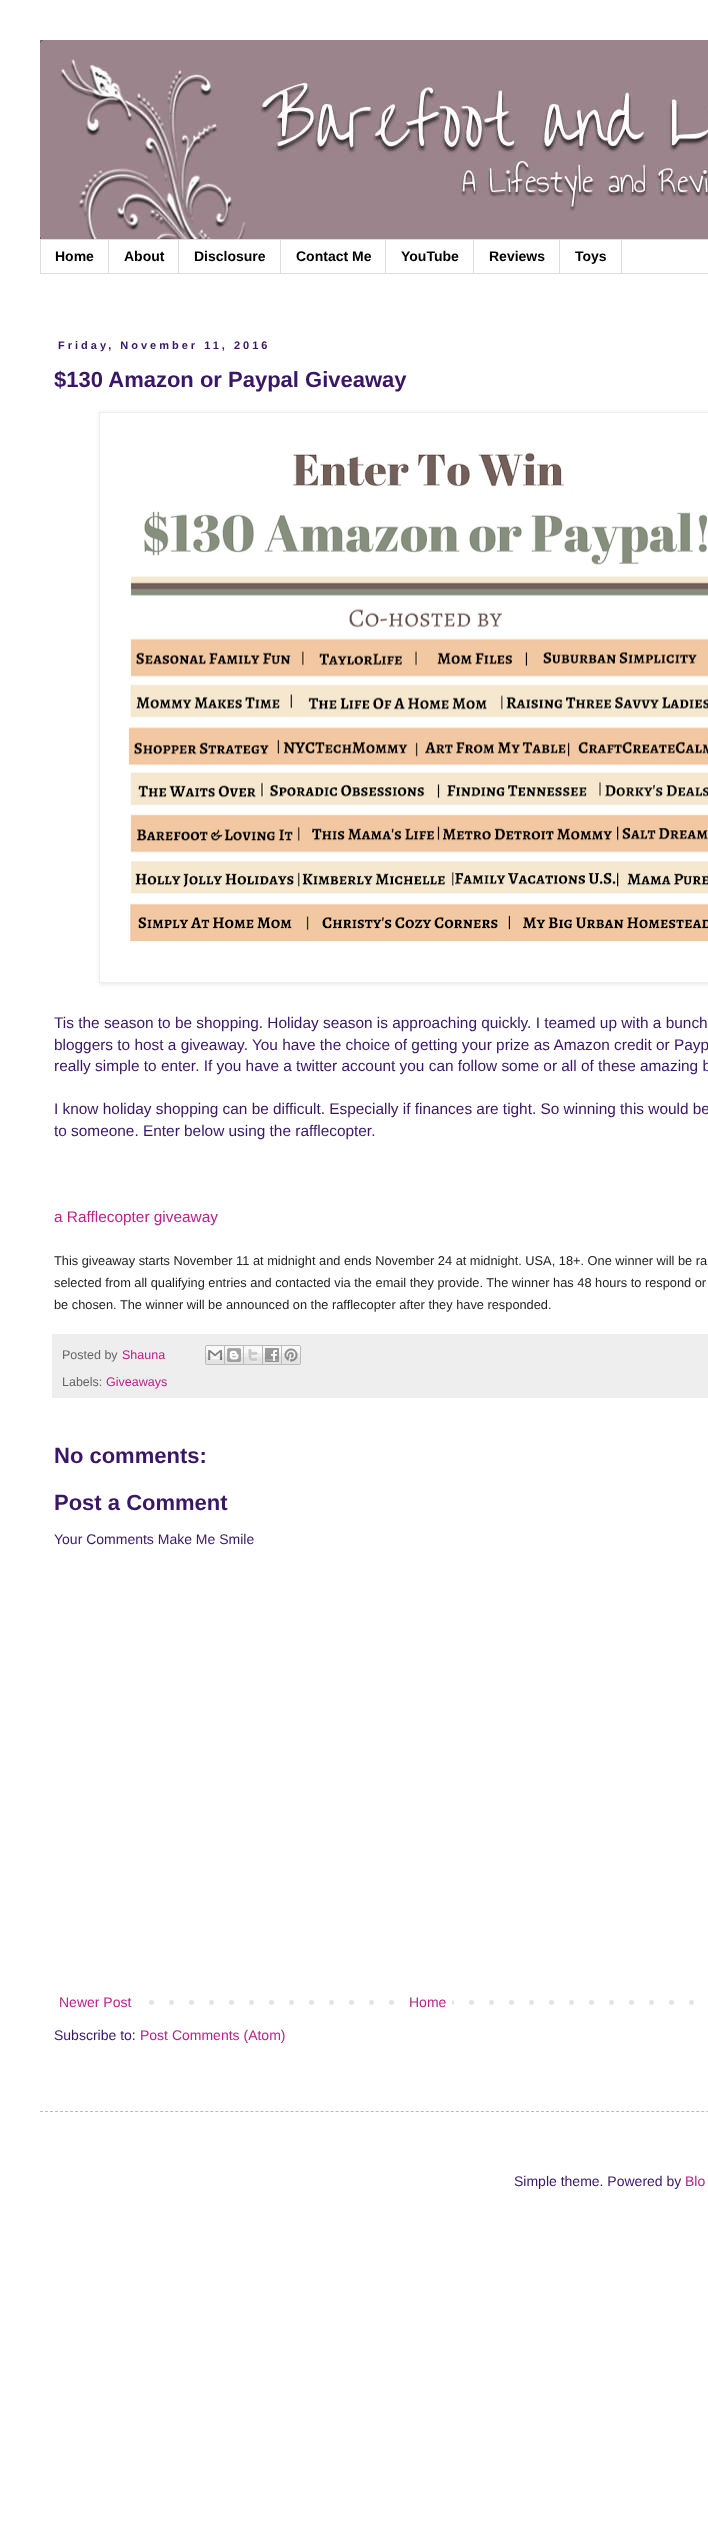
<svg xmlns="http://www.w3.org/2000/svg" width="708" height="2531">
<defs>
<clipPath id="clip1"><path d="M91 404h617v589h-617zm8 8h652v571h-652z" clip-rule="evenodd"/></clipPath>
</defs>
<rect width="100%" height="100%" fill="#fff"/>
<image x="40" y="40" width="668" height="199" href="media/1.png"/>
<rect x="40.5" y="239.5" width="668" height="34" fill="none" stroke="#ddd"/>
<rect x="108" y="240" width="1" height="33" fill="#ddd"/>
<text x="55" y="261" style="font-family:Liberation Sans;font-size:14px;font-weight:bold;fill:#000">Home</text>
<rect x="178" y="240" width="1" height="33" fill="#ddd"/>
<text x="124" y="261" style="font-family:Liberation Sans;font-size:14px;font-weight:bold;fill:#000">About</text>
<rect x="280" y="240" width="1" height="33" fill="#ddd"/>
<text x="194" y="261" style="font-family:Liberation Sans;font-size:14px;font-weight:bold;fill:#000">Disclosure</text>
<rect x="385" y="240" width="1" height="33" fill="#ddd"/>
<text x="296" y="261" style="font-family:Liberation Sans;font-size:14px;font-weight:bold;fill:#000">Contact Me</text>
<rect x="473" y="240" width="1" height="33" fill="#ddd"/>
<text x="401" y="261" style="font-family:Liberation Sans;font-size:14px;font-weight:bold;fill:#000">YouTube</text>
<rect x="559" y="240" width="1" height="33" fill="#ddd"/>
<text x="489" y="261" style="font-family:Liberation Sans;font-size:14px;font-weight:bold;fill:#000">Reviews</text>
<rect x="621" y="240" width="1" height="33" fill="#ddd"/>
<text x="575" y="261" style="font-family:Liberation Sans;font-size:14px;font-weight:bold;fill:#000">Toys</text>
<text x="58" y="349" style="font-family:Liberation Sans;font-size:11px;font-weight:bold;letter-spacing:3px;fill:#391666">Friday, November 11, 2016</text>
<text x="54" y="387" style="font-family:Liberation Sans;font-size:22px;font-weight:bold;fill:#391666">$130 Amazon or Paypal Giveaway</text>
<g clip-path="url(#clip1)">
<rect x="100" y="413" width="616" height="571" fill="#0000001a" filter="blur(2.5px)"/>
</g>
<rect x="99.5" y="412.5" width="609" height="570" fill="none" stroke="#eee"/>
<image x="128" y="452" width="580" height="490" href="media/2.png"/>
<text x="54" y="1028" style="font-family:Liberation Sans;font-size:15.4px;fill:#391666">Tis the season to be shopping. Holiday season is approaching quickly. I teamed up with a bunch</text>
<text x="54" y="1050" style="font-family:Liberation Sans;font-size:15.4px;fill:#391666">bloggers to host a giveaway. You have the choice of getting your prize as Amazon credit or Payp</text>
<text x="54" y="1071" style="font-family:Liberation Sans;font-size:15.4px;fill:#391666">really simple to enter. If you have a twitter account you can follow some or all of these amazing b</text>
<text x="54" y="1114" style="font-family:Liberation Sans;font-size:15.4px;fill:#391666">I know holiday shopping can be difficult. Especially if finances are tight. So winning this would be</text>
<text x="54" y="1136" style="font-family:Liberation Sans;font-size:15.4px;fill:#391666">to someone. Enter below using the rafflecopter.</text>
<text x="54" y="1222" style="font-family:Liberation Sans;font-size:15.4px;fill:#bb2188">a Rafflecopter giveaway</text>
<text x="54" y="1265" style="font-family:Liberation Sans;font-size:12.8px;fill:#222">This giveaway starts November 11 at midnight and ends November 24 at midnight. USA, 18+. One winner will be ra</text>
<text x="54" y="1287" style="font-family:Liberation Sans;font-size:12.8px;fill:#222">selected from all qualifying entries and contacted via the email they provide. The winner has 48 hours to respond or</text>
<rect x="518" y="1258" width="1" height="7" fill="#fff"/>
<text x="54" y="1309" style="font-family:Liberation Sans;font-size:12.8px;fill:#222">be chosen. The winner will be announced on the rafflecopter after they have responded.</text>
<rect x="52" y="1334" width="656" height="64" fill="#eee"/>
<text x="62" y="1359" style="font-family:Liberation Sans;font-size:12.5px;fill:#666">Posted by</text>
<text x="122" y="1359" style="font-family:Liberation Sans;font-size:12.5px;fill:#bb2188">Shauna</text>
<image x="205" y="1345" width="20" height="20" href="media/3.png"/>
<image x="225" y="1345" width="19" height="20" href="media/4.png"/>
<image x="244" y="1345" width="19" height="20" href="media/5.png"/>
<image x="263" y="1345" width="19" height="20" href="media/6.png"/>
<image x="282" y="1345" width="19" height="20" href="media/7.png"/>
<text x="62" y="1386" style="font-family:Liberation Sans;font-size:12.5px;fill:#666">Labels:</text>
<text x="106" y="1386" style="font-family:Liberation Sans;font-size:12.5px;fill:#bb2188">Giveaways</text>
<text x="54" y="1463" style="font-family:Liberation Sans;font-size:22px;font-weight:bold;fill:#391666">No comments:</text>
<text x="54" y="1510" style="font-family:Liberation Sans;font-size:22px;font-weight:bold;fill:#391666">Post a Comment</text>
<text x="54" y="1544" style="font-family:Liberation Sans;font-size:14px;fill:#391666">Your Comments Make Me Smile</text>
<image x="149" y="2000" width="545" height="5" href="media/8.png"/>
<text x="59" y="2007" style="font-family:Liberation Sans;font-size:14px;fill:#bb2188">Newer Post</text>
<rect x="409" y="2000" width="43" height="5" fill="#fff"/>
<text x="409" y="2007" style="font-family:Liberation Sans;font-size:14px;fill:#bb2188">Home</text>
<text x="54" y="2040" style="font-family:Liberation Sans;font-size:14px;fill:#391666">Subscribe to:</text>
<text x="140" y="2040" style="font-family:Liberation Sans;font-size:14px;fill:#bb2188">Post Comments (Atom)</text>
<path d="M40 2111.5h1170" fill="none" stroke="#bbb" stroke-dasharray="3 2.01"/>
<text x="514" y="2186" style="font-family:Liberation Sans;font-size:14px;fill:#391666">Simple theme. Powered by</text>
<text x="685" y="2186" style="font-family:Liberation Sans;font-size:14px;fill:#bb2188">Blo</text>
</svg>
